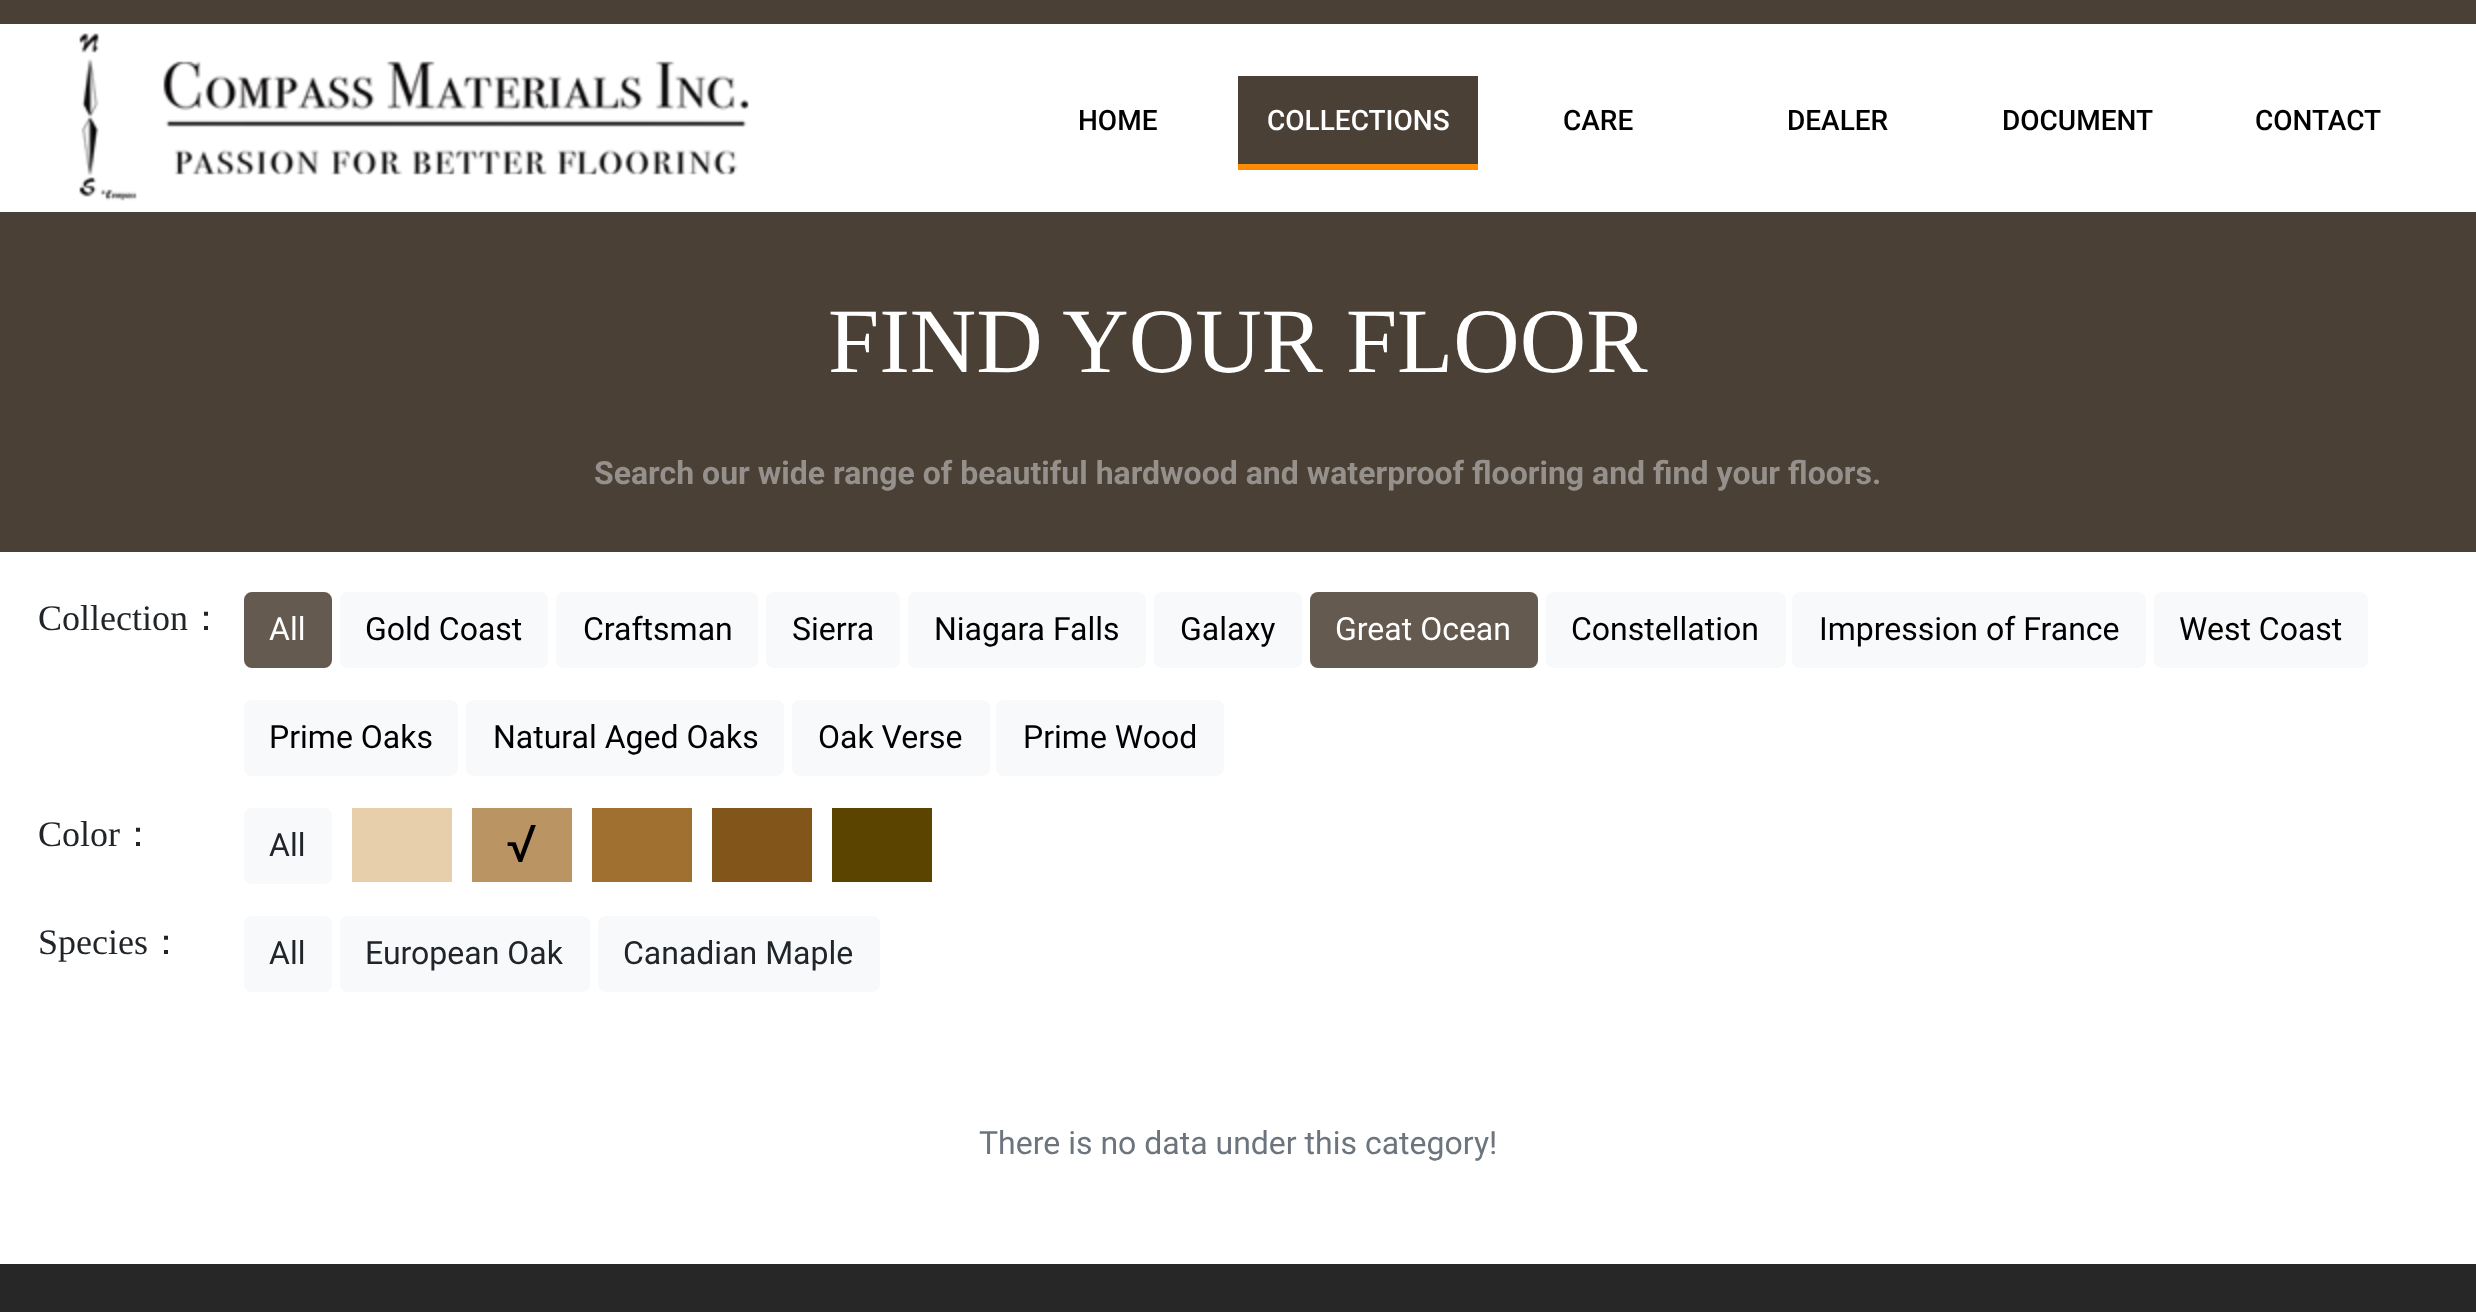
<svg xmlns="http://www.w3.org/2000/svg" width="2476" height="1312">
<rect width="100%" height="100%" fill="#fff"/>
<rect width="2476" height="24" fill="#4a4035"/>
<image x="79" y="33" width="670" height="168" href="media/1.png"/>
<text x="1078" y="130" style="font-family:Roboto;font-size:28px;font-weight:500;fill:#000">HOME</text>
<rect x="1238" y="76" width="240" height="88" fill="#4a4035"/>
<rect x="1238" y="164" width="240" height="6" fill="#ff8b04"/>
<text x="1267" y="130" style="font-family:Roboto;font-size:28px;font-weight:500;fill:#fff">COLLECTIONS</text>
<text x="1563" y="130" style="font-family:Roboto;font-size:28px;font-weight:500;fill:#000">CARE</text>
<text x="1787" y="130" style="font-family:Roboto;font-size:28px;font-weight:500;fill:#000">DEALER</text>
<text x="2002" y="130" style="font-family:Roboto;font-size:28px;font-weight:500;fill:#000">DOCUMENT</text>
<text x="2255" y="130" style="font-family:Roboto;font-size:28px;font-weight:500;fill:#000">CONTACT</text>
<rect y="212" width="2476" height="340" fill="#4a4035"/>
<text x="828" y="372" style="font-family:Liberation Serif;font-size:92px;fill:#fff">FIND YOUR FLOOR</text>
<text x="594" y="484" style="font-family:Roboto;font-size:32px;font-weight:bold;fill:#95908c">Search our wide range of beautiful hardwood and waterproof flooring and find your floors.</text>
<text x="38" y="630" style="font-family:Liberation Serif;font-size:36px;fill:#212529">Collection</text>
<text x="188" y="630" style="font-family:WenQuanYi Zen Hei;font-size:36px;font-weight:500;fill:#212529">：</text>
<rect x="245" y="593" width="86" height="74" rx="7" fill="#645a4f" stroke="#645a4f" stroke-width="2"/>
<text x="269" y="640" style="font-family:Roboto;font-size:32px;fill:#fff">All</text>
<rect x="340" y="592" width="208" height="76" rx="8" fill="#f8f9fa"/>
<text x="365" y="640" style="font-family:Roboto;font-size:32px;fill:#000">Gold Coast</text>
<rect x="556" y="592" width="202" height="76" rx="8" fill="#f8f9fa"/>
<text x="583" y="640" style="font-family:Roboto;font-size:32px;fill:#000">Craftsman</text>
<rect x="766" y="592" width="134" height="76" rx="8" fill="#f8f9fa"/>
<text x="792" y="640" style="font-family:Roboto;font-size:32px;fill:#000">Sierra</text>
<rect x="908" y="592" width="238" height="76" rx="8" fill="#f8f9fa"/>
<text x="934" y="640" style="font-family:Roboto;font-size:32px;fill:#000">Niagara Falls</text>
<rect x="1154" y="592" width="148" height="76" rx="8" fill="#f8f9fa"/>
<text x="1180" y="640" style="font-family:Roboto;font-size:32px;fill:#000">Galaxy</text>
<rect x="1310" y="592" width="228" height="76" rx="8" fill="#645a4f"/>
<text x="1335" y="640" style="font-family:Roboto;font-size:32px;fill:#fff">Great Ocean</text>
<rect x="1546" y="592" width="240" height="76" rx="8" fill="#f8f9fa"/>
<text x="1571" y="640" style="font-family:Roboto;font-size:32px;fill:#000">Constellation</text>
<rect x="1792" y="592" width="354" height="76" rx="8" fill="#f8f9fa"/>
<text x="1819" y="640" style="font-family:Roboto;font-size:32px;fill:#000">Impression of France</text>
<rect x="2154" y="592" width="214" height="76" rx="8" fill="#f8f9fa"/>
<text x="2179" y="640" style="font-family:Roboto;font-size:32px;fill:#000">West Coast</text>
<rect x="244" y="700" width="214" height="76" rx="8" fill="#f8f9fa"/>
<text x="269" y="748" style="font-family:Roboto;font-size:32px;fill:#000">Prime Oaks</text>
<rect x="466" y="700" width="318" height="76" rx="8" fill="#f8f9fa"/>
<text x="493" y="748" style="font-family:Roboto;font-size:32px;fill:#000">Natural Aged Oaks</text>
<rect x="792" y="700" width="198" height="76" rx="8" fill="#f8f9fa"/>
<text x="818" y="748" style="font-family:Roboto;font-size:32px;fill:#000">Oak Verse</text>
<rect x="996" y="700" width="228" height="76" rx="8" fill="#f8f9fa"/>
<text x="1023" y="748" style="font-family:Roboto;font-size:32px;fill:#000">Prime Wood</text>
<text x="38" y="846" style="font-family:Liberation Serif;font-size:36px;fill:#212529">Color</text>
<text x="120" y="846" style="font-family:WenQuanYi Zen Hei;font-size:36px;font-weight:500;fill:#212529">：</text>
<rect x="244" y="808" width="88" height="76" rx="8" fill="#f8f9fa"/>
<text x="269" y="856" style="font-family:Roboto;font-size:32px;fill:#212529">All</text>
<rect x="352" y="808" width="100" height="74" fill="#e8cfac"/>
<rect x="472" y="808" width="100" height="74" fill="#ba9563"/>
<text x="506" y="862" style="font-family:Roboto;font-size:52px;fill:#000">√</text>
<rect x="592" y="808" width="100" height="74" fill="#a07030"/>
<rect x="712" y="808" width="100" height="74" fill="#82551a"/>
<rect x="832" y="808" width="100" height="74" fill="#5b4300"/>
<text x="38" y="954" style="font-family:Liberation Serif;font-size:36px;fill:#212529">Species</text>
<text x="148" y="954" style="font-family:WenQuanYi Zen Hei;font-size:36px;font-weight:500;fill:#212529">：</text>
<rect x="244" y="916" width="88" height="76" rx="8" fill="#f8f9fa"/>
<text x="269" y="964" style="font-family:Roboto;font-size:32px;fill:#212529">All</text>
<rect x="340" y="916" width="250" height="76" rx="8" fill="#f8f9fa"/>
<text x="365" y="964" style="font-family:Roboto;font-size:32px;fill:#212529">European Oak</text>
<rect x="598" y="916" width="282" height="76" rx="8" fill="#f8f9fa"/>
<text x="623" y="964" style="font-family:Roboto;font-size:32px;fill:#212529">Canadian Maple</text>
<text x="979" y="1154" style="font-family:Roboto;font-size:32px;fill:#6c757d">There is no data under this category!</text>
<rect y="1264" width="2476" height="48" fill="#272727"/>
</svg>
